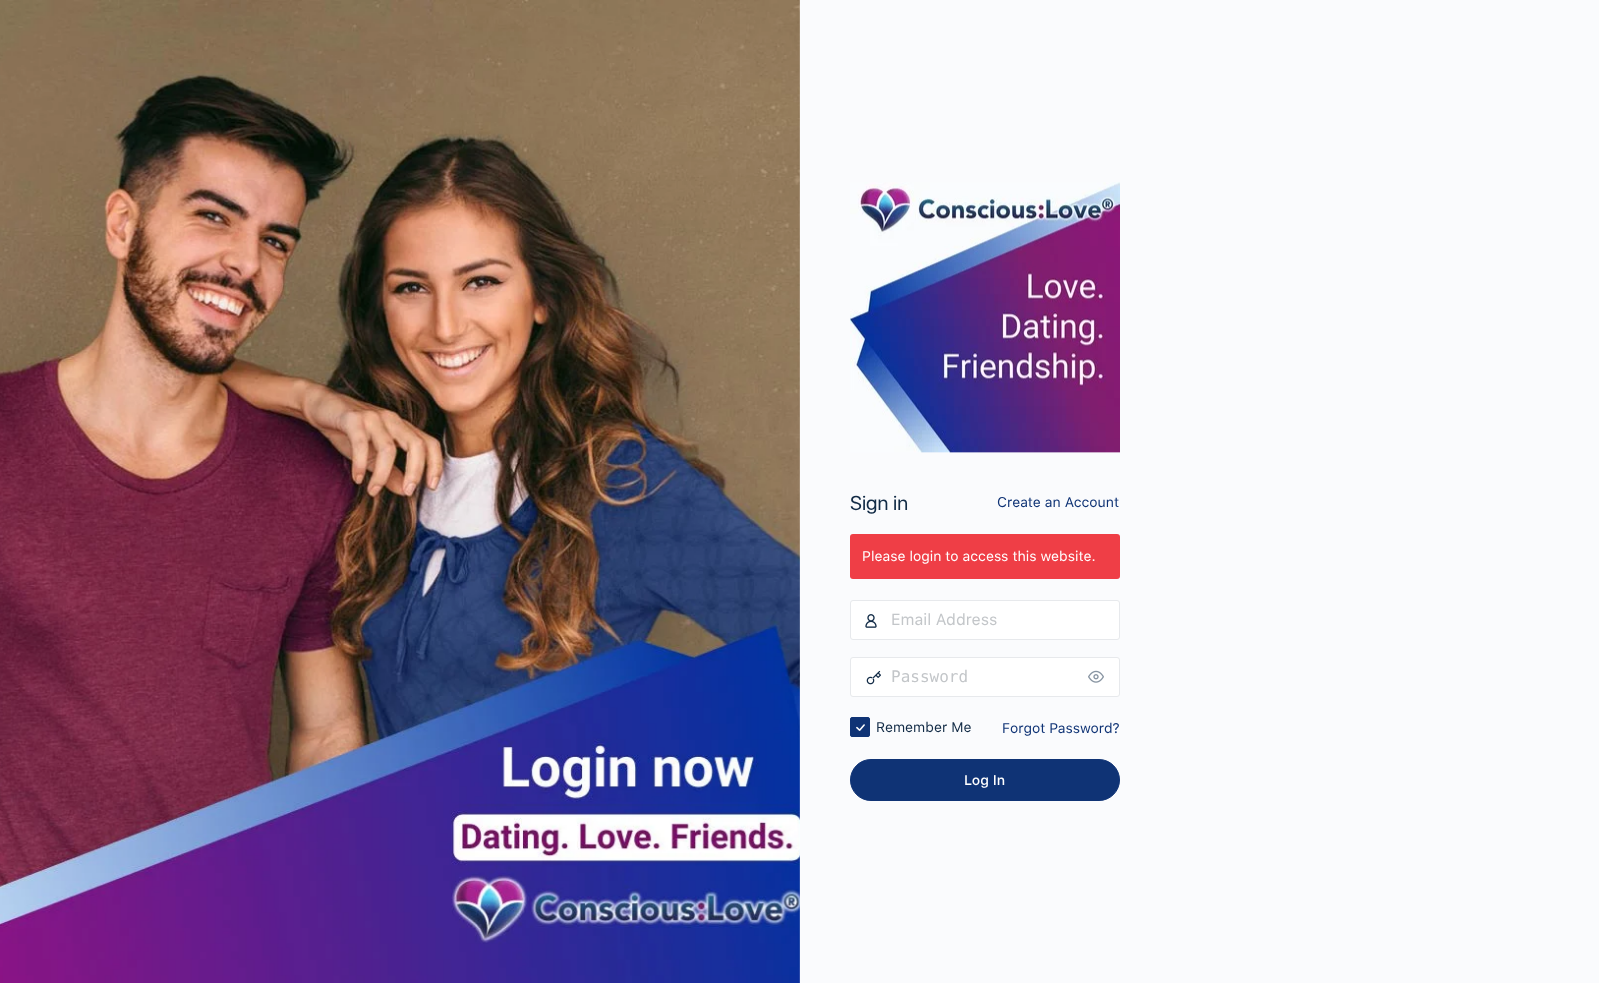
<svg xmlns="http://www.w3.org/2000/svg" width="1599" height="983">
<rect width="100%" height="100%" fill="#fafbfd"/>
<image x="0" y="0" width="800" height="983" href="media/1.png"/>
<image x="850" y="182" width="270" height="271" href="media/2.png"/>
<text x="850" y="510" style="font-family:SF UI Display;font-size:20px;fill:#122b46">Sign in</text>
<text x="997" y="507" style="font-family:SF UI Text;font-size:14px;fill:#0f3375">Create an Account</text>
<rect x="850" y="534" width="270" height="45" rx="3" fill="#ef3e46"/>
<text x="862" y="561" style="font-family:SF UI Text;font-size:14px;fill:#fff">Please login to access this website.</text>
<rect x="850.5" y="600.5" width="269" height="39" rx="2.5" fill="#fff" stroke="#e7e9ec"/>
<image x="865" y="614" width="12" height="14" href="media/3.png"/>
<text x="891" y="625" style="font-family:SF UI Text;font-size:16px;fill:#c3c6c9">Email Address</text>
<rect x="850.5" y="657.5" width="269" height="39" rx="2.5" fill="#fff" stroke="#e7e9ec"/>
<image x="866" y="670" width="15" height="15" href="media/4.png"/>
<text x="891" y="682" style="font-family:DejaVu Sans Mono;font-size:16px;fill:#c3c6c9">Password</text>
<image x="1088" y="670" width="16" height="13" href="media/5.png"/>
<rect x="850.5" y="717.5" width="19" height="19" rx="1.5" fill="#0f3375" stroke="#0f3375"/>
<image x="856" y="724" width="9" height="7" href="media/6.png"/>
<text x="876" y="732" style="font-family:SF UI Text;font-size:14px;fill:#122b46">Remember Me</text>
<text x="1002" y="733" style="font-family:SF UI Text;font-size:14px;fill:#0f3375">Forgot Password?</text>
<rect x="850.5" y="759.5" width="269" height="41" rx="20.5" fill="#0f3375" stroke="#0f3375"/>
<text x="964" y="785" style="font-family:SF UI Text;font-size:14px;font-weight:500;fill:#fff">Log In</text>
</svg>
